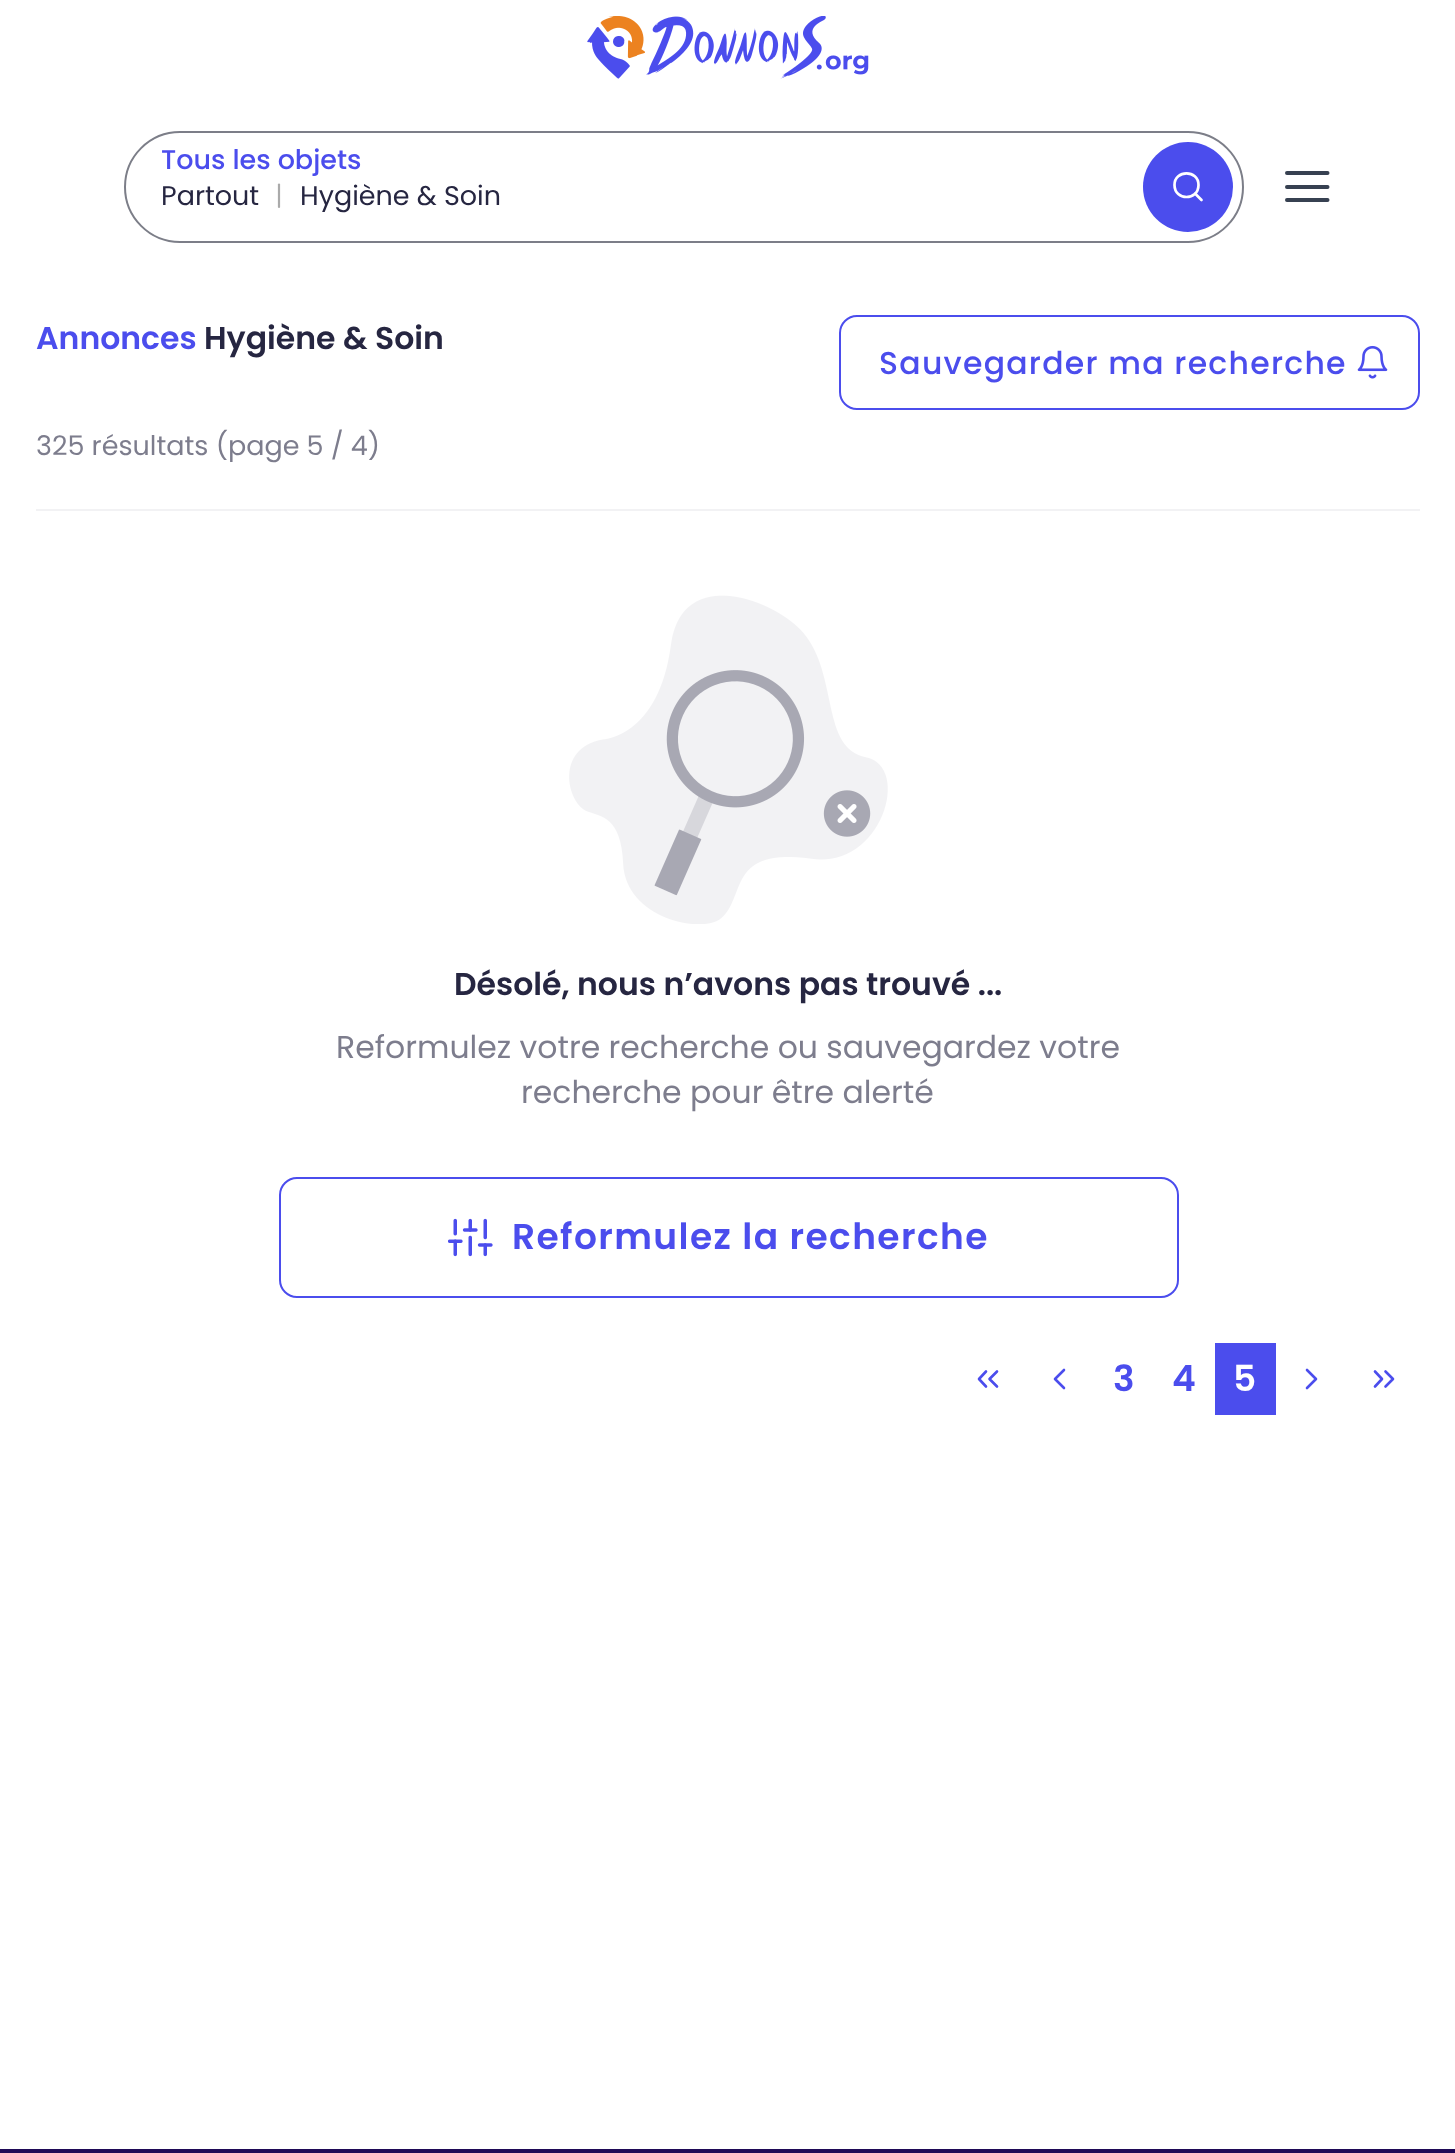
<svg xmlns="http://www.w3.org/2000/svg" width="1455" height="2153">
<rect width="100%" height="100%" fill="#fff"/>
<image x="587" y="16" width="58" height="63" href="media/1.png"/>
<image x="646" y="16" width="223" height="63" href="media/2.png"/>
<rect x="125" y="132" width="1118" height="110" rx="55" fill="none" stroke="#7c7e88" stroke-width="2"/>
<text x="161" y="169" style="font-family:Poppins;font-size:27px;font-weight:500;fill:#4b4ded">Tous les objets</text>
<text x="161" y="205" style="font-family:Poppins;font-size:27px;fill:#262641">Partout</text>
<path d="M279 184.5v22.5" fill="none" stroke="#aaa" stroke-width="2.2" stroke-linecap="round"/>
<text x="300" y="205" style="font-family:Poppins;font-size:27px;fill:#262641">Hygiène &amp; Soin</text>
<circle cx="1188" cy="187" r="45" fill="#4b4ded"/>
<path d="M1201.5 200l-6.5-6.5m3.5-8.5c0 16-24 16-24 0c0-15.5 24-15.5 24 0z" fill="none" stroke="#fff" stroke-width="2.7" stroke-linecap="round" stroke-linejoin="round"/>
<path d="M1287 187h40.5m-40.5-14h40.5m-40.5 27h40.5" fill="none" stroke="#374151" stroke-width="4" stroke-linecap="round" stroke-linejoin="round"/>
<rect x="36" y="509" width="1384" height="2" fill="#f2f2f4"/>
<text x="36" y="349" style="font-family:Poppins;font-size:31.5px;font-weight:600;fill:#4b4ded">Annonces</text>
<text x="204" y="349" style="font-family:Poppins;font-size:31.5px;font-weight:600;fill:#262641">Hygiène &amp; Soin</text>
<rect x="840" y="316" width="579" height="93" rx="17" fill="none" stroke="#4b4ded" stroke-width="2"/>
<text x="879" y="374" style="font-family:Poppins;font-size:31.5px;font-weight:500;letter-spacing:1.25px;fill:#4b4ded">Sauvegarder ma recherche</text>
<image x="1357" y="345" width="31" height="34" href="media/3.png"/>
<text x="36" y="455" style="font-family:Poppins;font-size:27px;fill:#7d7d8d">325 résultats (page 5 / 4)</text>
<image x="569" y="595" width="319" height="329" href="media/4.png"/>
<text x="454" y="995" style="font-family:Poppins;font-size:31.5px;font-weight:600;fill:#262641">Désolé, nous n’avons pas trouvé ...</text>
<text x="336" y="1058" style="font-family:Poppins;font-size:31.5px;fill:#7d7d8d">Reformulez votre recherche ou sauvegardez votre</text>
<text x="521" y="1103" style="font-family:Poppins;font-size:31.5px;fill:#7d7d8d">recherche pour être alerté</text>
<rect x="280" y="1178" width="898" height="119" rx="17" fill="none" stroke="#4b4ded" stroke-width="2"/>
<image x="448" y="1218" width="45" height="39" href="media/5.png"/>
<text x="512" y="1249" style="font-family:Poppins;font-size:36px;font-weight:600;letter-spacing:1.4px;fill:#4b4ded">Reformulez la recherche</text>
<path d="M986 1386.5l-7-7.5l7-7.5m11 15l-7.5-7.5l7.5-7.5" fill="none" stroke="#4b4ded" stroke-width="2.6" stroke-linecap="round" stroke-linejoin="round"/>
<path d="M1064 1388l-9-9l9-9" fill="none" stroke="#4b4ded" stroke-width="2.6" stroke-linecap="round" stroke-linejoin="round"/>
<text x="1113" y="1391" style="font-family:Poppins;font-size:36px;font-weight:600;letter-spacing:1.4px;fill:#4b4ded">3</text>
<text x="1172" y="1391" style="font-family:Poppins;font-size:36px;font-weight:600;letter-spacing:1.4px;fill:#4b4ded">4</text>
<rect x="1215" y="1343" width="61" height="72" fill="#4b4ded"/>
<text x="1233" y="1391" style="font-family:Poppins;font-size:36px;font-weight:600;letter-spacing:1.4px;fill:#fff">5</text>
<path d="M1307 1388l9-9l-9-9" fill="none" stroke="#4b4ded" stroke-width="2.6" stroke-linecap="round" stroke-linejoin="round"/>
<path d="M1385.5 1386.5l7.5-7.5l-7.5-7.5m-10.5 15l7-7.5l-7-7.5" fill="none" stroke="#4b4ded" stroke-width="2.6" stroke-linecap="round" stroke-linejoin="round"/>
<rect y="2149" width="1455" height="4" fill="#1f0a57"/>
</svg>
